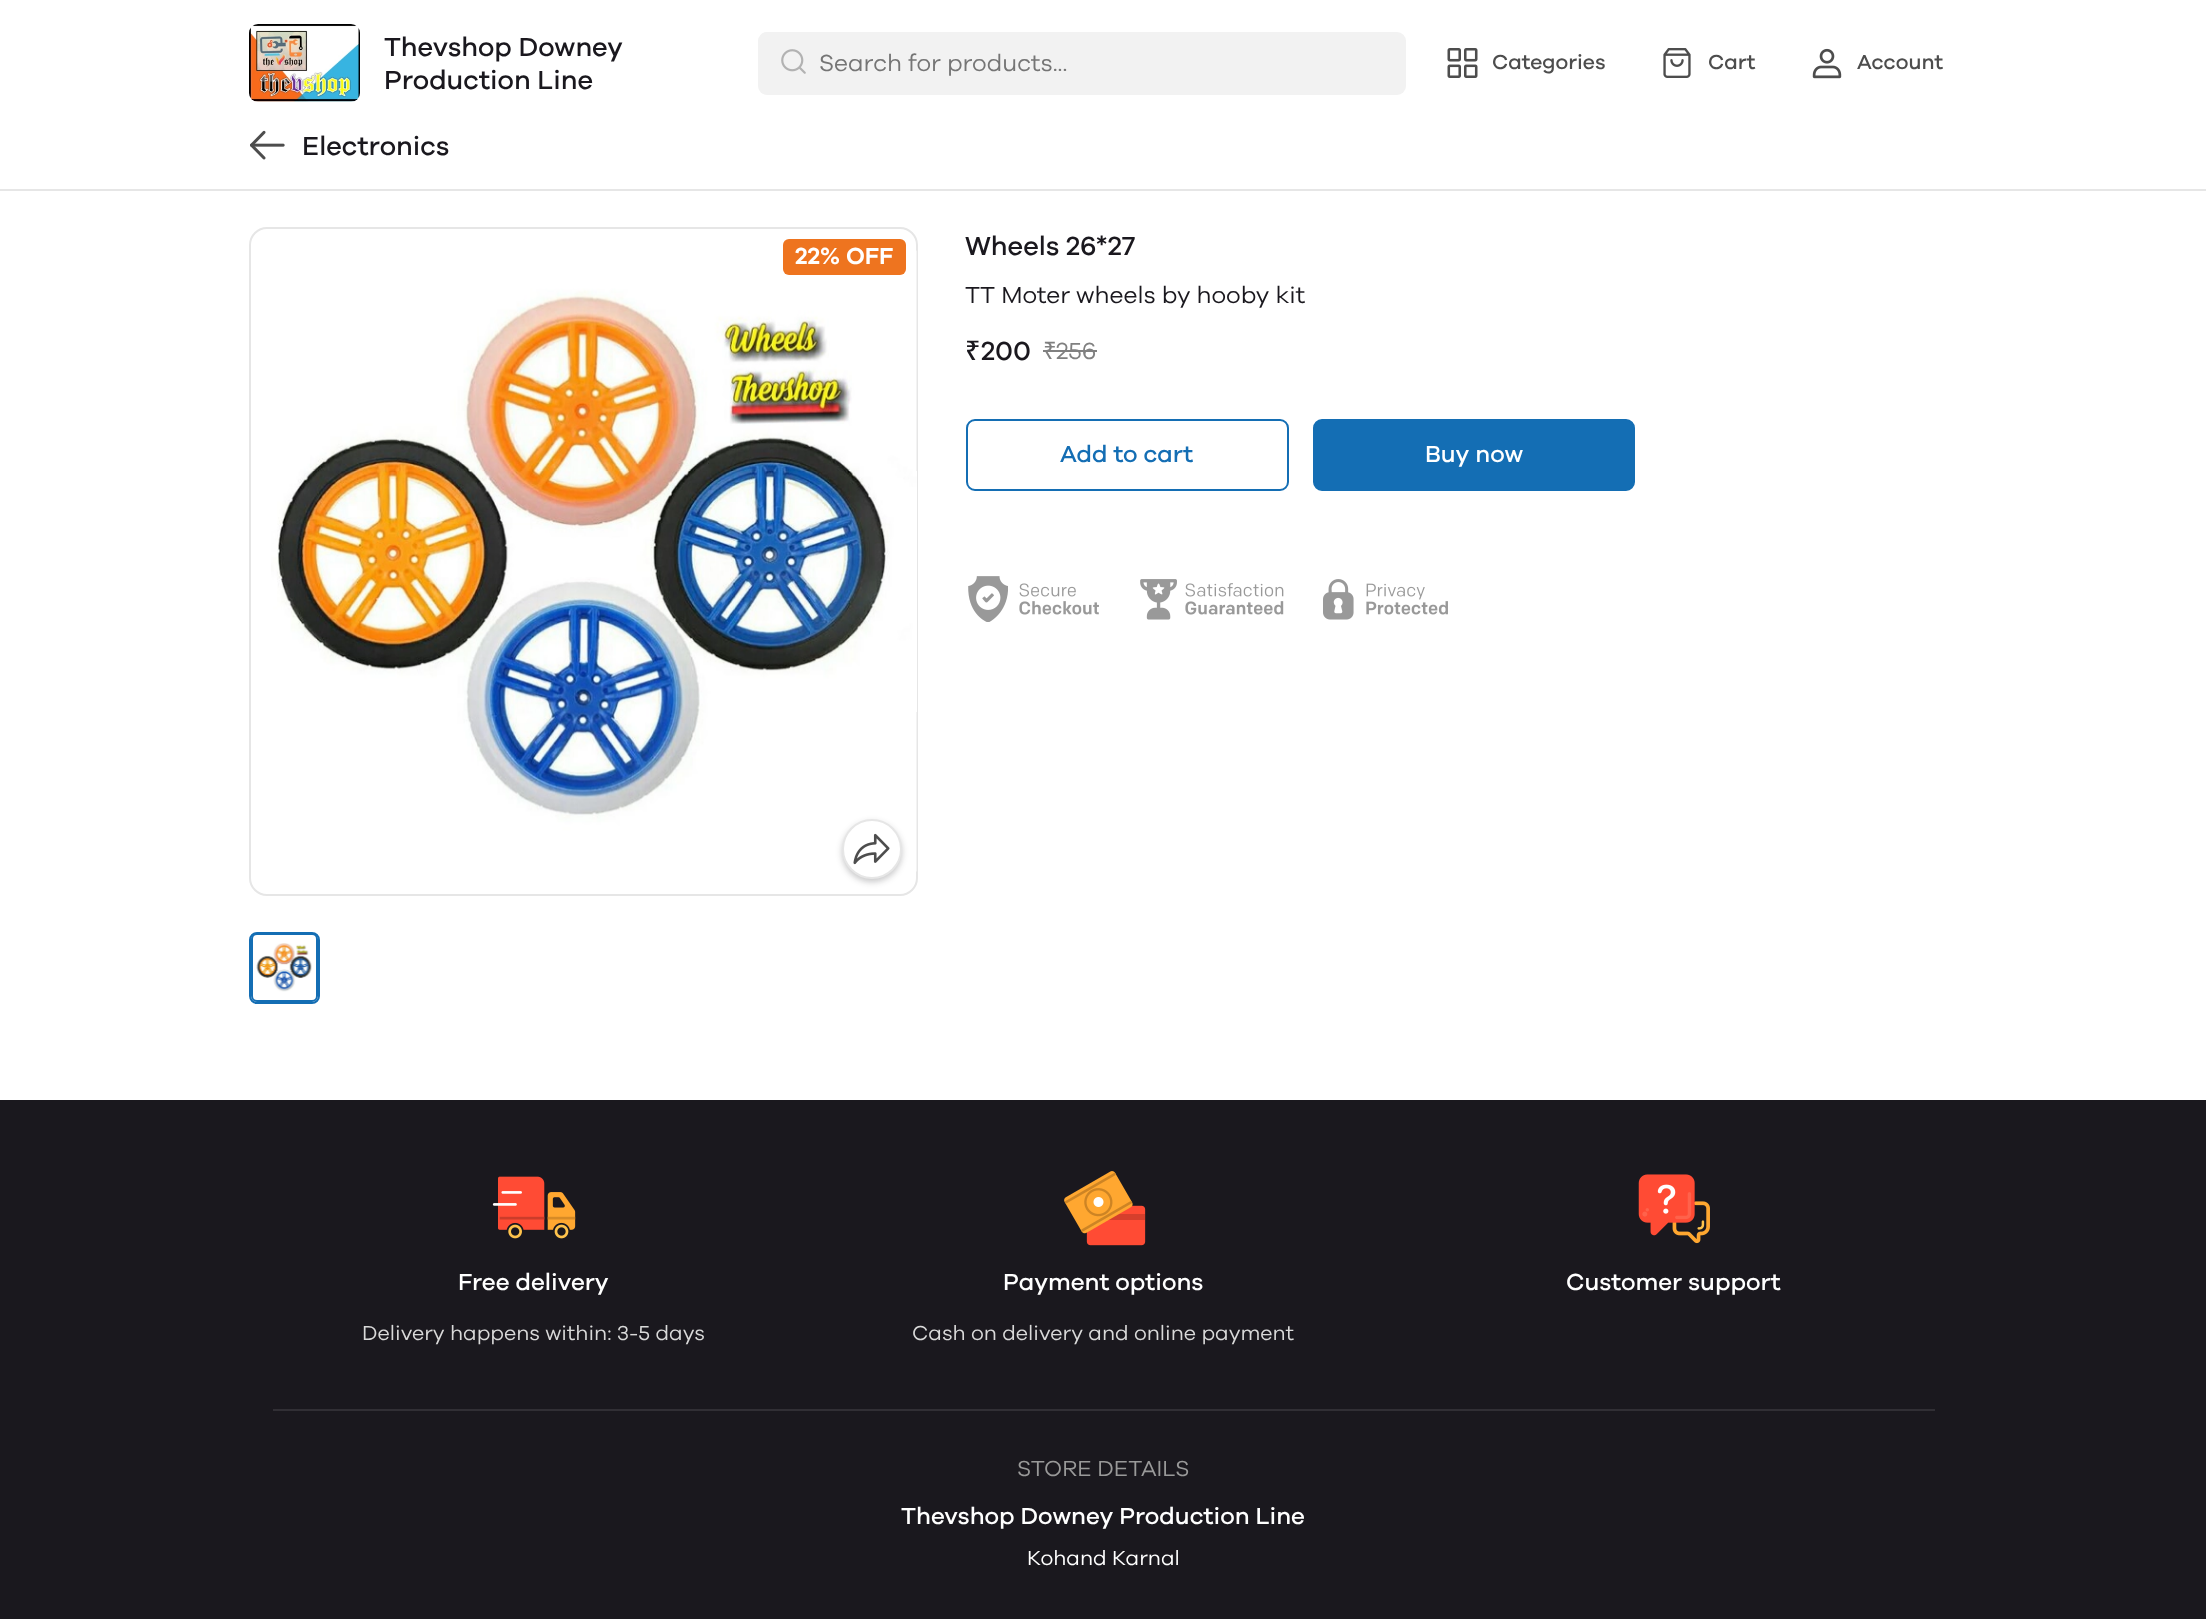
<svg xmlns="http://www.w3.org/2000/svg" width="2206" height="1619">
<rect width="100%" height="100%" fill="#fff"/>
<rect y="189" width="2206" height="2" fill="#e6e6e6"/>
<image x="249" y="24" width="111" height="78" href="media/1.png"/>
<text x="384" y="56" style="font-family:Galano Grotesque;font-size:27px;font-weight:500;fill:#1a181e">Thevshop Downey</text>
<text x="384" y="89" style="font-family:Galano Grotesque;font-size:27px;font-weight:500;fill:#1a181e">Production Line</text>
<rect x="758" y="32" width="648" height="63" rx="9" fill="#f2f2f2"/>
<image x="781" y="49" width="25" height="25" href="media/2.png"/>
<text x="819" y="71" style="font-family:Galano Grotesque;font-size:24px;fill:#757575">Search for products...</text>
<image x="1447" y="48" width="31" height="30" href="media/3.png"/>
<text x="1492" y="69" style="font-family:Galano Grotesque;font-size:21px;font-weight:500;fill:#4d4d4d">Categories</text>
<image x="1663" y="48" width="28" height="30" href="media/4.png"/>
<text x="1708" y="69" style="font-family:Galano Grotesque;font-size:21px;font-weight:500;fill:#4d4d4d">Cart</text>
<image x="1812" y="48" width="30" height="31" href="media/5.png"/>
<text x="1857" y="69" style="font-family:Galano Grotesque;font-size:21px;font-weight:500;fill:#4d4d4d">Account</text>
<image x="250" y="130" width="35" height="30" href="media/6.png"/>
<text x="302" y="155" style="font-family:Galano Grotesque;font-size:27px;font-weight:500;fill:#1a181e">Electronics</text>
<rect x="250" y="228" width="667" height="667" rx="17" fill="none" stroke="#e6e6e6" stroke-width="2"/>
<image x="271" y="250" width="646" height="622" href="media/7.png"/>
<rect x="842" y="822" width="60" height="60" rx="30" fill="#1a181e3d" filter="blur(3px)"/>
<circle cx="872" cy="849" r="29" fill="#fff" stroke="#e6e6e6" stroke-width="2"/>
<image x="853" y="833" width="37" height="32" href="media/8.png"/>
<rect x="783" y="239" width="123" height="36" rx="6" fill="#ee741f"/>
<text x="795" y="264" style="font-family:Galano Grotesque;font-size:24px;font-weight:600;fill:#fff">22% OFF</text>
<rect x="250" y="933" width="69" height="70" rx="7" fill="none" stroke="#146eb4" stroke-width="2"/>
<rect x="252" y="934" width="65" height="67" rx="5" fill="none" stroke="#146eb4" stroke-width="2"/>
<image x="256" y="943" width="56" height="49" href="media/9.png"/>
<text x="965" y="255" style="font-family:Galano Grotesque;font-size:27px;font-weight:500;fill:#1a181e">Wheels 26*27</text>
<text x="965" y="303" style="font-family:Galano Grotesque;font-size:24px;fill:#1a181e">TT Moter wheels by hooby kit</text>
<text x="965" y="360" style="font-family:Noto Sans;font-size:27px;font-weight:500;fill:#1a181e">₹</text>
<text x="981" y="360" style="font-family:Galano Grotesque;font-size:27px;font-weight:500;fill:#1a181e">200</text>
<text x="1043" y="359" style="font-family:Noto Sans;font-size:24px;fill:#808080">₹</text>
<text x="1056" y="359" style="font-family:Galano Grotesque;font-size:24px;fill:#808080">256</text>
<rect x="1043" y="350" width="54" height="2" fill="#808080"/>
<rect x="967" y="420" width="321" height="70" rx="8" fill="none" stroke="#146eb4" stroke-width="2"/>
<text x="1060" y="462" style="font-family:Galano Grotesque;font-size:24px;font-weight:500;fill:#146eb4">Add to cart</text>
<rect x="1314" y="420" width="320" height="70" rx="8" fill="#146eb4" stroke="#146eb4" stroke-width="2"/>
<text x="1425" y="462" style="font-family:Galano Grotesque;font-size:24px;font-weight:500;fill:#fff">Buy now</text>
<image x="968" y="576" width="131" height="46" href="media/10.png"/>
<image x="1140" y="579" width="144" height="41" href="media/11.png"/>
<image x="1323" y="579" width="125" height="41" href="media/12.png"/>
<rect y="1100" width="2206" height="519" fill="#1a181e"/>
<image x="492" y="1176" width="84" height="63" href="media/13.png"/>
<text x="458" y="1290" style="font-family:Galano Grotesque;font-size:24px;font-weight:500;fill:#fff">Free delivery</text>
<text x="362" y="1340" style="font-family:Galano Grotesque;font-size:21px;fill:#d9d9d9">Delivery happens within: 3-5 days</text>
<image x="1064" y="1171" width="82" height="75" href="media/14.png"/>
<text x="1003" y="1290" style="font-family:Galano Grotesque;font-size:24px;font-weight:500;fill:#fff">Payment options</text>
<text x="912" y="1340" style="font-family:Galano Grotesque;font-size:21px;fill:#d9d9d9">Cash on delivery and online payment</text>
<image x="1638" y="1174" width="72" height="70" href="media/15.png"/>
<text x="1566" y="1290" style="font-family:Galano Grotesque;font-size:24px;font-weight:500;fill:#fff">Customer support</text>
<rect x="273" y="1409" width="1662" height="2" fill="#312f35"/>
<text x="1017" y="1476" style="font-family:Galano Grotesque;font-size:22.5px;fill:#999">STORE DETAILS</text>
<text x="901" y="1524" style="font-family:Galano Grotesque;font-size:24px;font-weight:500;fill:#fff">Thevshop Downey Production Line</text>
<text x="1027" y="1565" style="font-family:Galano Grotesque;font-size:21px;fill:#fff">Kohand Karnal</text>
</svg>
